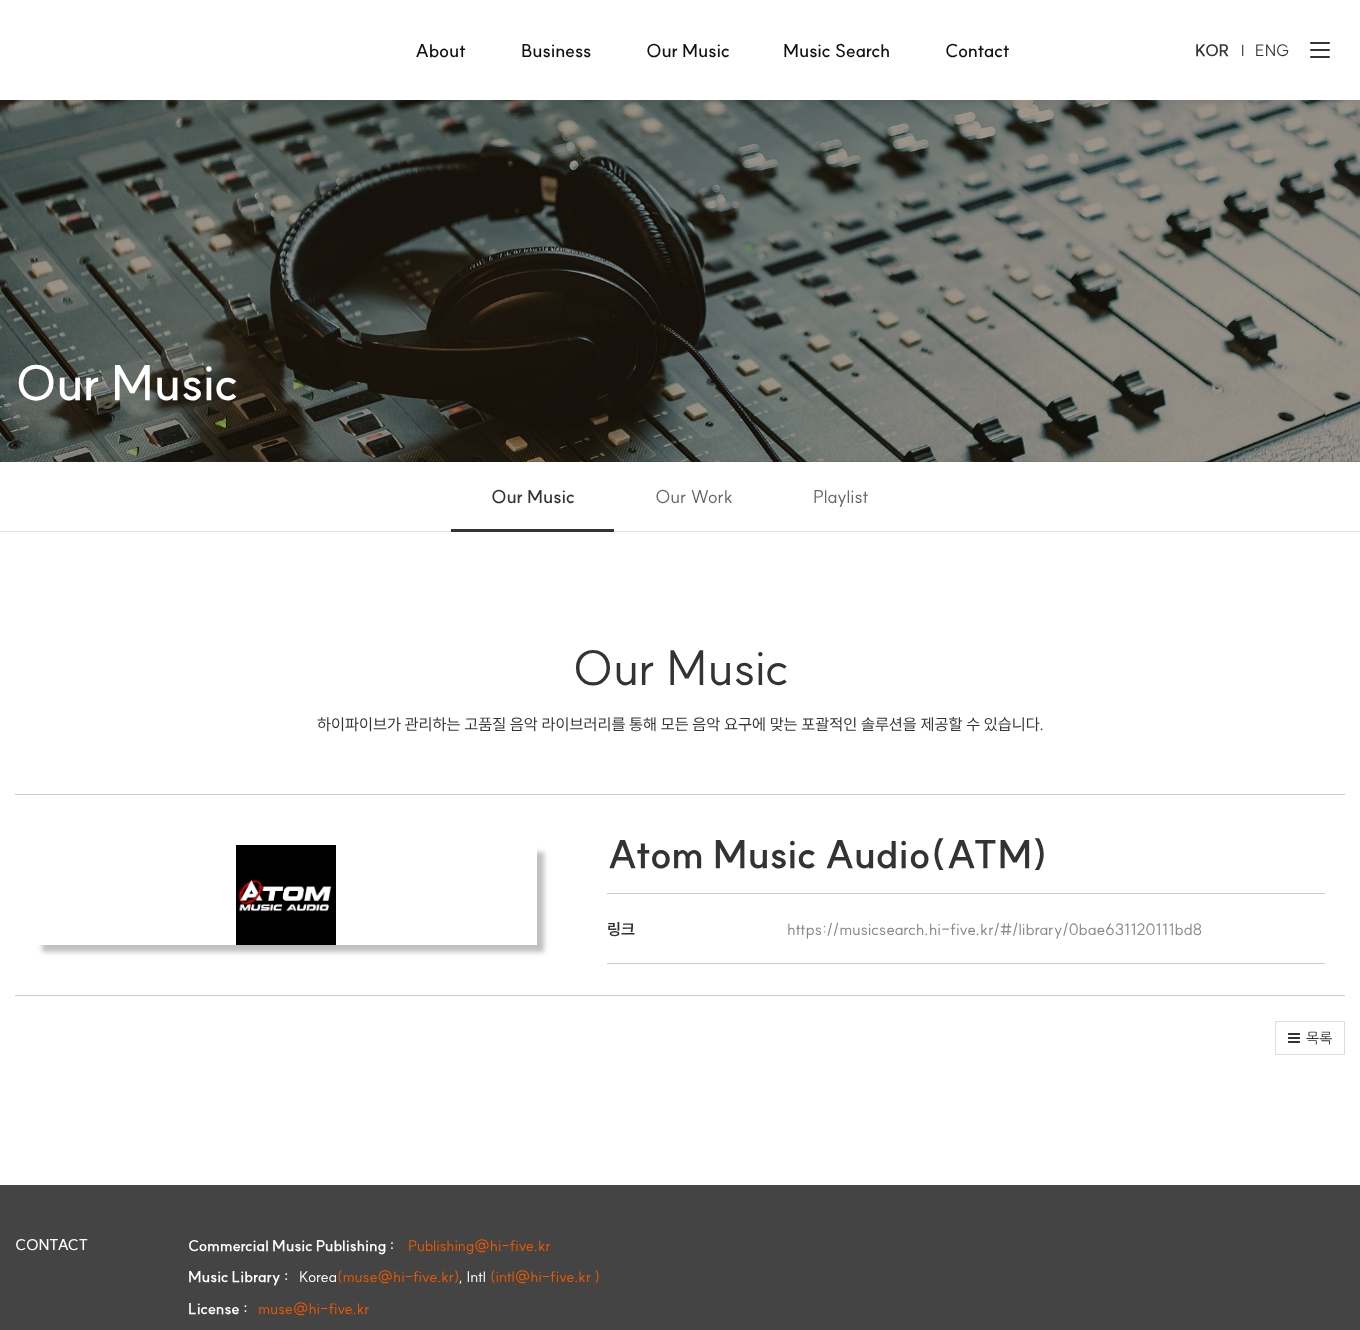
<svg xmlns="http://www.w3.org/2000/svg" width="1360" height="1330">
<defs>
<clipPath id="clip1"><path d="M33 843h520v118h-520zm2 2h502v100h-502z" clip-rule="evenodd"/></clipPath>
</defs>
<rect width="100%" height="100%" fill="#fff"/>
<image x="0" y="461" width="1360" height="1" href="media/2.png"/>
<image x="0" y="100" width="1360" height="362" href="media/1.png"/>
<rect width="1360" height="100" fill="#0000001a" filter="blur(5px)"/>
<rect width="1360" height="100" fill="#fff"/>
<text x="415" y="57" style="font-family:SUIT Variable;font-size:18px;font-weight:600;fill:#111">About</text>
<text x="521" y="57" style="font-family:SUIT Variable;font-size:18px;font-weight:600;fill:#111">Business</text>
<text x="646" y="57" style="font-family:SUIT Variable;font-size:18px;font-weight:600;fill:#111">Our Music</text>
<text x="783" y="57" style="font-family:SUIT Variable;font-size:18px;font-weight:600;fill:#111">Music Search</text>
<text x="945" y="57" style="font-family:SUIT Variable;font-size:18px;font-weight:600;fill:#111">Contact</text>
<text x="1195" y="56" style="font-family:SUIT Variable;font-size:16px;font-weight:bold;fill:#333">KOR</text>
<text x="1241" y="56" style="font-family:SUIT Variable;font-size:16px;fill:#333">l</text>
<text x="1255" y="56" style="font-family:SUIT Variable;font-size:16px;fill:#333">ENG</text>
<rect x="1310" y="42" width="20" height="2" rx="1" fill="#333"/>
<rect x="1310" y="49" width="20" height="2" rx="1" fill="#333"/>
<rect x="1310" y="56" width="20" height="2" rx="1" fill="#333"/>
<text x="15" y="400" style="font-family:SUIT Variable;font-size:48px;font-weight:600;fill:#fff">Our Music</text>
<text x="491" y="503" style="font-family:SUIT Variable;font-size:18px;font-weight:600;fill:#333">Our Music</text>
<rect y="531" width="1360" height="1" fill="#ddd"/>
<rect x="451" y="529" width="163" height="3" fill="#333"/>
<text x="655" y="503" style="font-family:SUIT Variable;font-size:18px;fill:#666">Our Work</text>
<text x="813" y="503" style="font-family:SUIT Variable;font-size:18px;fill:#666">Playlist</text>
<text x="572" y="685" style="font-family:SUIT Variable;font-size:48px;fill:#333">Our Music</text>
<text x="317" y="730" style="font-family:SUIT Variable;font-size:16px;fill:#333">하이파이브가 관리하는 고품질 음악 라이브러리를 통해 모든 음악 요구에 맞는 포괄적인 솔루션을 제공할 수 있습니다.</text>
<rect x="15" y="794" width="1330" height="1" fill="#ccc"/>
<rect x="15" y="995" width="1330" height="1" fill="#ccc"/>
<g clip-path="url(#clip1)">
<rect x="42" y="852" width="502" height="100" fill="#00000040" filter="blur(2.5px)"/>
</g>
<image x="236" y="845" width="100" height="100" href="media/3.png"/>
<text x="607" y="868" style="font-family:SUIT Variable;font-size:38.4px;font-weight:bold;fill:#333">Atom Music Audio(ATM)</text>
<rect x="607" y="893" width="718" height="1" fill="#ccc"/>
<rect x="607" y="963" width="718" height="1" fill="#ccc"/>
<text x="607" y="935" style="font-family:SUIT Variable;font-size:16px;font-weight:bold;fill:#333">링크</text>
<text x="787" y="935" style="font-family:SUIT Variable;font-size:16px;fill:#888">https://musicsearch.hi-five.kr/#/library/0bae631120111bd8</text>
<rect x="1275.5" y="1021.5" width="69" height="33" fill="none" stroke="#ddd"/>
<image x="1288" y="1033" width="12" height="10" href="media/4.png"/>
<text x="1306" y="1043" style="font-family:NanumGothic;font-size:14px;fill:#333">목록</text>
<rect y="1185" width="1360" height="145" fill="#444"/>
<text x="15" y="1250" style="font-family:SUIT Variable;font-size:15px;font-weight:600;fill:#fff">CONTACT</text>
<text x="188" y="1251" style="font-family:SUIT Variable;font-size:15px;font-weight:bold;fill:#fff">Commercial Music Publishing :</text>
<text x="408" y="1251" style="font-family:SUIT Variable;font-size:15px;fill:#eb5800">Publishing@hi-five.kr</text>
<text x="188" y="1282" style="font-family:SUIT Variable;font-size:15px;font-weight:bold;fill:#fff">Music Library :</text>
<text x="299" y="1282" style="font-family:SUIT Variable;font-size:15px;fill:#fff">Korea</text>
<text x="337" y="1282" style="font-family:SUIT Variable;font-size:15px;fill:#eb5800">(muse@hi-five.kr)</text>
<text x="459" y="1282" style="font-family:SUIT Variable;font-size:15px;fill:#fff">, Intl</text>
<text x="490" y="1282" style="font-family:SUIT Variable;font-size:15px;fill:#eb5800">(intl@hi-five.kr )</text>
<text x="188" y="1314" style="font-family:SUIT Variable;font-size:15px;font-weight:bold;fill:#fff">License :</text>
<text x="258" y="1314" style="font-family:SUIT Variable;font-size:15px;fill:#eb5800">muse@hi-five.kr</text>
</svg>
